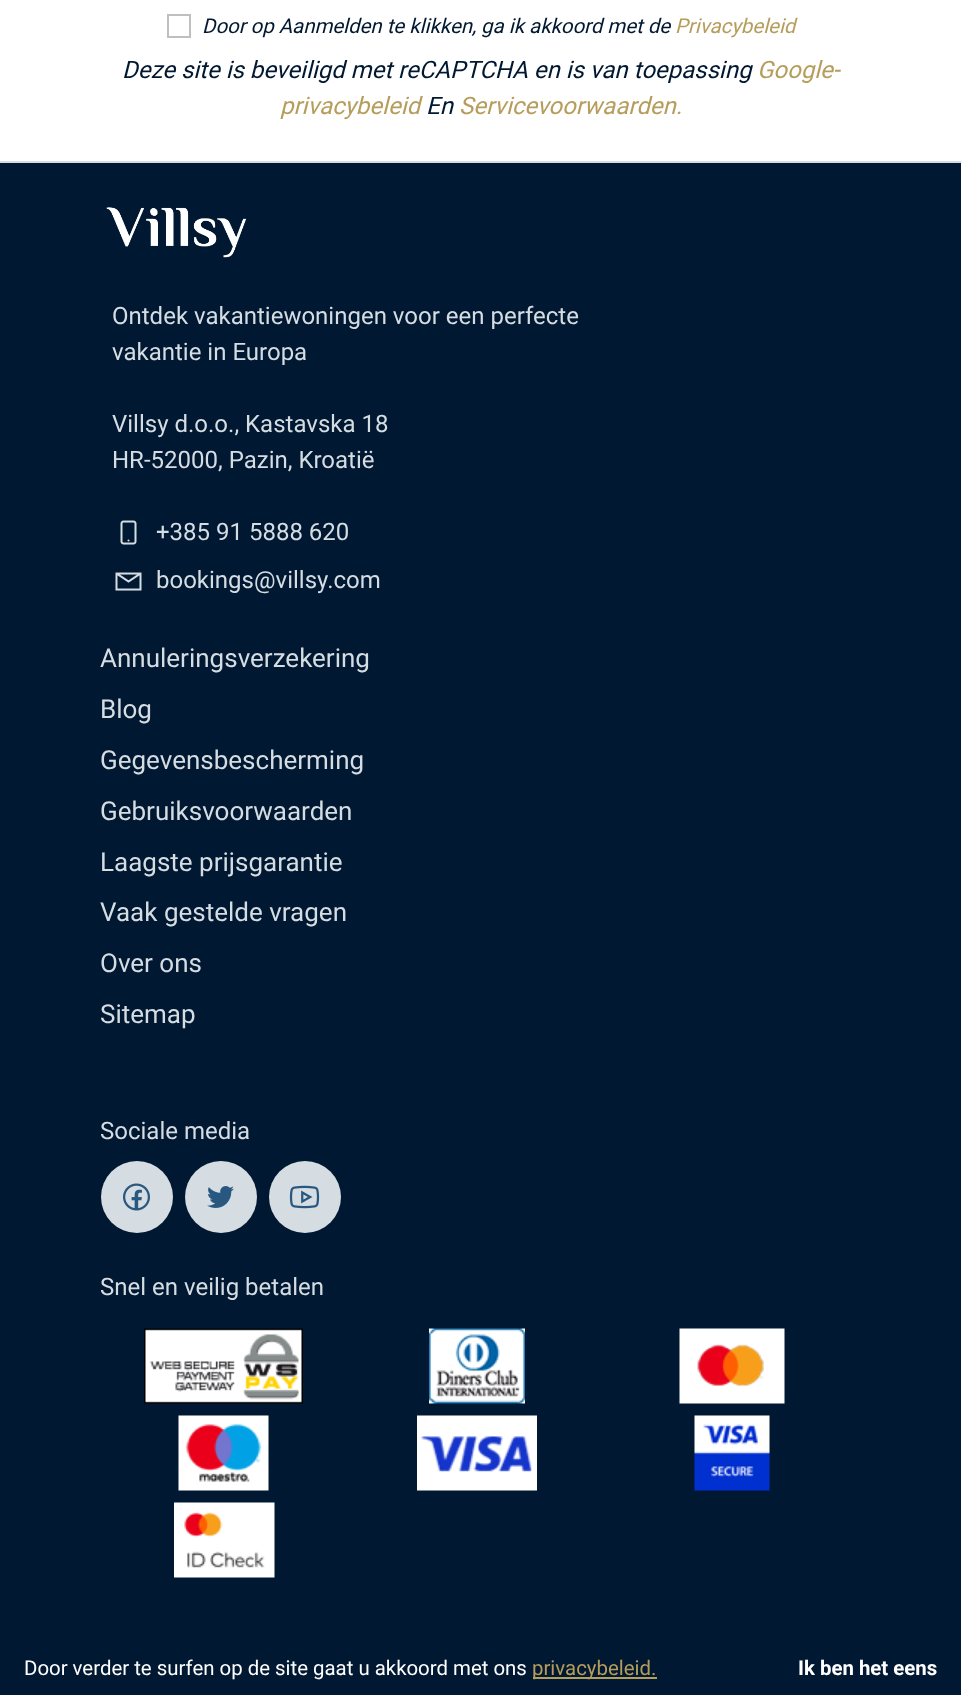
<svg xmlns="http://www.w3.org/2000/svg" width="961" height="1695">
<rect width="100%" height="100%" fill="#001831"/>
<rect width="961" height="161" fill="#fff"/>
<rect y="161" width="961" height="2" fill="#d5dde3"/>
<rect x="168" y="15" width="22" height="22" fill="none" stroke="#bfbfbf" stroke-width="2"/>
<text x="202" y="33" style="font-family:Roboto;font-size:20.4px;font-style:italic;fill:#001831">Door op Aanmelden te klikken, ga ik akkoord met de</text>
<text x="675" y="33" style="font-family:Roboto;font-size:20.4px;font-style:italic;fill:#b69d5c">Privacybeleid</text>
<text x="122" y="78" style="font-family:Roboto;font-size:24px;font-style:italic;fill:#001831">Deze site is beveiligd met reCAPTCHA en is van toepassing</text>
<text x="757" y="78" style="font-family:Roboto;font-size:24px;font-style:italic;fill:#b69d5c">Google-</text>
<text x="280" y="114" style="font-family:Roboto;font-size:24px;font-style:italic;fill:#b69d5c">privacybeleid</text>
<text x="426" y="114" style="font-family:Roboto;font-size:24px;font-style:italic;fill:#001831">En</text>
<text x="459" y="114" style="font-family:Roboto;font-size:24px;font-style:italic;fill:#b69d5c">Servicevoorwaarden.</text>
<image x="106" y="207" width="141" height="51" href="media/1.png"/>
<text x="112" y="324" style="font-family:Roboto;font-size:24px;fill:#d5dde3">Ontdek vakantiewoningen voor een perfecte</text>
<text x="112" y="360" style="font-family:Roboto;font-size:24px;fill:#d5dde3">vakantie in Europa</text>
<text x="112" y="432" style="font-family:Roboto;font-size:24px;fill:#d5dde3">Villsy d.o.o., Kastavska 18</text>
<text x="112" y="468" style="font-family:Roboto;font-size:24px;fill:#d5dde3">HR-52000, Pazin, Kroatië</text>
<image x="120" y="520" width="17" height="25" href="media/2.png"/>
<text x="156" y="540" style="font-family:Roboto;font-size:24px;fill:#d5dde3">+385 91 5888 620</text>
<image x="115" y="572" width="27" height="19" href="media/3.png"/>
<text x="156" y="588" style="font-family:Roboto;font-size:24px;fill:#d5dde3">bookings@villsy.com</text>
<text x="100" y="667" style="font-family:Roboto;font-size:26px;fill:#d5dde3">Annuleringsverzekering</text>
<text x="100" y="718" style="font-family:Roboto;font-size:26px;fill:#d5dde3">Blog</text>
<text x="100" y="769" style="font-family:Roboto;font-size:26px;fill:#d5dde3">Gegevensbescherming</text>
<text x="100" y="820" style="font-family:Roboto;font-size:26px;fill:#d5dde3">Gebruiksvoorwaarden</text>
<text x="100" y="871" style="font-family:Roboto;font-size:26px;fill:#d5dde3">Laagste prijsgarantie</text>
<text x="100" y="921" style="font-family:Roboto;font-size:26px;fill:#d5dde3">Vaak gestelde vragen</text>
<text x="100" y="972" style="font-family:Roboto;font-size:26px;fill:#d5dde3">Over ons</text>
<text x="100" y="1023" style="font-family:Roboto;font-size:26px;fill:#d5dde3">Sitemap</text>
<text x="100" y="1139" style="font-family:Roboto;font-size:24px;fill:#d5dde3">Sociale media</text>
<circle cx="137" cy="1197" r="36" fill="#d5dde3"/>
<image x="123" y="1183" width="27" height="28" href="media/4.png"/>
<circle cx="221" cy="1197" r="36" fill="#d5dde3"/>
<image x="207" y="1186" width="27" height="22" href="media/5.png"/>
<circle cx="305" cy="1197" r="36" fill="#d5dde3"/>
<image x="289" y="1185" width="31" height="24" href="media/6.png"/>
<text x="100" y="1295" style="font-family:Roboto;font-size:24px;fill:#d5dde3">Snel en veilig betalen</text>
<image x="144" y="1328" width="159" height="76" href="media/7.png"/>
<image x="429" y="1328" width="96" height="76" href="media/8.png"/>
<image x="679" y="1328" width="106" height="76" href="media/9.png"/>
<image x="178" y="1415" width="91" height="76" href="media/10.png"/>
<image x="417" y="1415" width="120" height="76" href="media/11.png"/>
<image x="694" y="1415" width="76" height="76" href="media/12.png"/>
<image x="174" y="1502" width="101" height="76" href="media/13.png"/>
<text x="24" y="1675" style="font-family:Roboto;font-size:20.4px;fill:#fff">Door verder te surfen op de site gaat u akkoord met ons</text>
<rect x="533" y="1677" width="124" height="2" fill="#b69d5c"/>
<text x="532" y="1675" style="font-family:Roboto;font-size:20.4px;fill:#b69d5c">privacybeleid.</text>
<text x="798" y="1675" style="font-family:Roboto;font-size:20.4px;font-weight:bold;fill:#fff">Ik ben het eens</text>
</svg>
